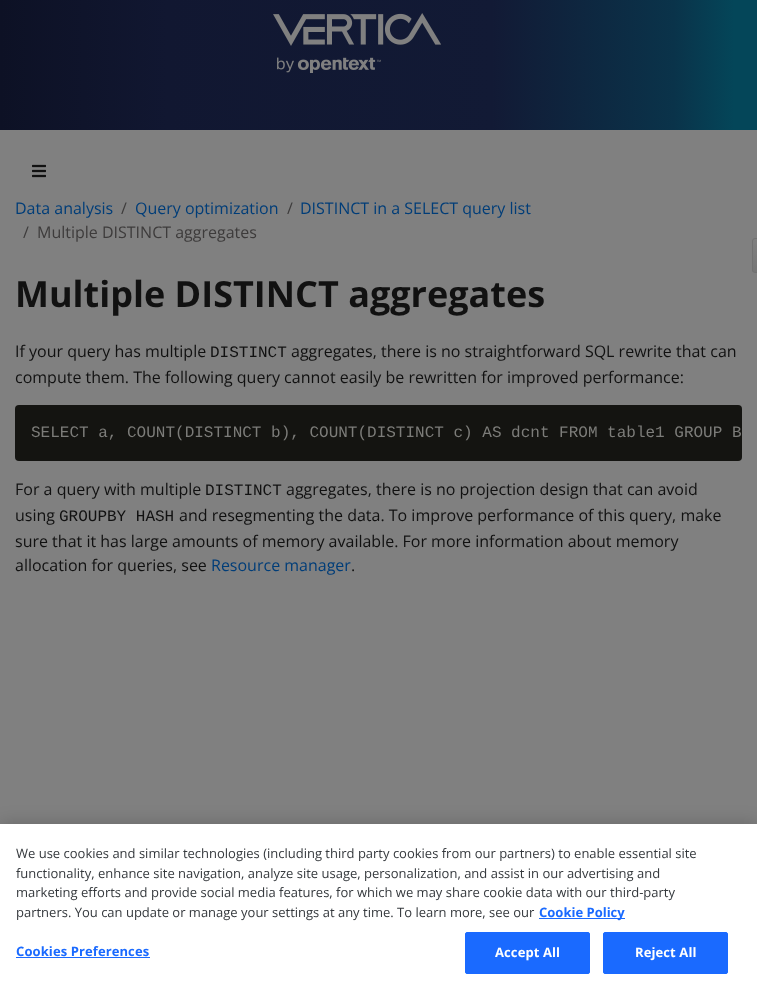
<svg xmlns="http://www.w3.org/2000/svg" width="757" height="995">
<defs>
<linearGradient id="g1" gradientUnits="userSpaceOnUse" x1="0" y1="65" x2="757" y2="65"><stop offset="0" stop-color="#0d1125"/><stop offset="0.22" stop-color="#111731"/><stop offset="0.65" stop-color="#121a35"/><stop offset="0.89" stop-color="#0a334a"/><stop offset="0.97" stop-color="#044659"/></linearGradient>
<clipPath id="clip1"><rect x="752" y="238" width="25" height="35" rx="3"/></clipPath>
<linearGradient id="g2" gradientUnits="userSpaceOnUse" x1="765" y1="239" x2="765" y2="272"><stop offset="0" stop-color="#808080"/><stop offset="1" stop-color="#767676"/></linearGradient>
</defs>
<rect width="100%" height="100%" fill="#808080"/>
<rect width="757" height="130" fill="url(#g1)"/>
<image x="273" y="13" width="168" height="60" href="media/1.png"/>
<g clip-path="url(#clip1)">
<rect x="752" y="239" width="5" height="33" fill="url(#g2)"/>
</g>
<rect x="752.5" y="238.5" width="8" height="34" rx="2.5" fill="none" stroke="#717171"/>
<image x="32" y="164" width="14" height="14" href="media/2.png"/>
<text x="15" y="214" style="font-family:Open Sans;font-size:16px;fill:#003d78">Data analysis</text>
<text x="121" y="214" style="font-family:Open Sans;font-size:16px;fill:#3d3b3b">/</text>
<text x="135" y="214" style="font-family:Open Sans;font-size:16px;fill:#003d78">Query optimization</text>
<text x="287" y="214" style="font-family:Open Sans;font-size:16px;fill:#3d3b3b">/</text>
<text x="300" y="214" style="font-family:Open Sans;font-size:16px;fill:#003d78">DISTINCT in a SELECT query list</text>
<text x="23" y="238" style="font-family:Open Sans;font-size:16px;fill:#3d3b3b">/</text>
<text x="37" y="238" style="font-family:Open Sans;font-size:16px;fill:#3d3b3b">Multiple DISTINCT aggregates</text>
<text x="15" y="307" style="font-family:Open Sans;font-size:36px;font-weight:bold;fill:#111">Multiple DISTINCT aggregates</text>
<text x="15" y="357" style="font-family:Open Sans;font-size:16px;fill:#111">If your query has multiple</text>
<text x="210" y="357" style="font-family:Liberation Mono;font-size:16px;fill:#111">DISTINCT</text>
<text x="291" y="357" style="font-family:Open Sans;font-size:16px;fill:#111">aggregates, there is no straightforward SQL rewrite that can</text>
<text x="15" y="383" style="font-family:Open Sans;font-size:16px;fill:#111">compute them. The following query cannot easily be rewritten for improved performance:</text>
<rect x="15" y="405" width="727" height="56" rx="4" fill="#141411"/>
<text x="31" y="437" style="font-family:Liberation Mono;font-size:16px;fill:#7c7c79">SELECT a, COUNT(DISTINCT b), COUNT(DISTINCT c) AS dcnt FROM table1 GROUP B</text>
<text x="15" y="495" style="font-family:Open Sans;font-size:16px;fill:#111">For a query with multiple</text>
<text x="205" y="495" style="font-family:Liberation Mono;font-size:16px;fill:#111">DISTINCT</text>
<text x="286" y="495" style="font-family:Open Sans;font-size:16px;fill:#111">aggregates, there is no projection design that can avoid</text>
<text x="15" y="521" style="font-family:Open Sans;font-size:16px;fill:#111">using</text>
<text x="59" y="521" style="font-family:Liberation Mono;font-size:16px;fill:#111">GROUPBY HASH</text>
<text x="179" y="521" style="font-family:Open Sans;font-size:16px;fill:#111">and resegmenting the data. To improve performance of this query, make</text>
<text x="15" y="547" style="font-family:Open Sans;font-size:16px;fill:#111">sure that it has large amounts of memory available. For more information about memory</text>
<text x="15" y="571" style="font-family:Open Sans;font-size:16px;fill:#111">allocation for queries, see</text>
<text x="211" y="571" style="font-family:Open Sans;font-size:16px;fill:#003d78">Resource manager</text>
<text x="351" y="571" style="font-family:Open Sans;font-size:16px;fill:#111">.</text>
<rect y="824" width="757" height="171" fill="#00000033" filter="blur(9px)"/>
<rect y="824" width="757" height="171" fill="#fff"/>
<text x="16" y="858" style="font-family:Open Sans;font-size:13px;fill:#35393d">We use cookies and similar technologies (including third party cookies from our partners) to enable essential site</text>
<text x="16" y="878" style="font-family:Open Sans;font-size:13px;fill:#35393d">functionality, enhance site navigation, analyze site usage, personalization, and assist in our advertising and</text>
<text x="16" y="897" style="font-family:Open Sans;font-size:13px;fill:#35393d">marketing efforts and provide social media features, for which we may share cookie data with our third-party</text>
<text x="16" y="917" style="font-family:Open Sans;font-size:13px;fill:#35393d">partners. You can update or manage your settings at any time. To learn more, see our</text>
<rect x="539" y="918" width="86" height="1" fill="#1a6aff"/>
<text x="539" y="917" style="font-family:Open Sans;font-size:13px;font-weight:bold;fill:#1a6aff">Cookie Policy</text>
<text x="16" y="956" style="font-family:Open Sans;font-size:13px;font-weight:bold;letter-spacing:0.1px;fill:#1a6aff">Cookies Preferences</text>
<rect x="16" y="957" width="134" height="1" fill="#1a6aff"/>
<rect x="465.5" y="932.5" width="124" height="41" rx="1.5" fill="#1a6aff" stroke="#1a6aff"/>
<text x="495" y="957" style="font-family:Open Sans;font-size:13px;font-weight:bold;letter-spacing:0.1px;fill:#fff">Accept All</text>
<rect x="603.5" y="932.5" width="124" height="41" rx="1.5" fill="#1a6aff" stroke="#1a6aff"/>
<text x="635" y="957" style="font-family:Open Sans;font-size:13px;font-weight:bold;letter-spacing:0.1px;fill:#fff">Reject All</text>
</svg>
